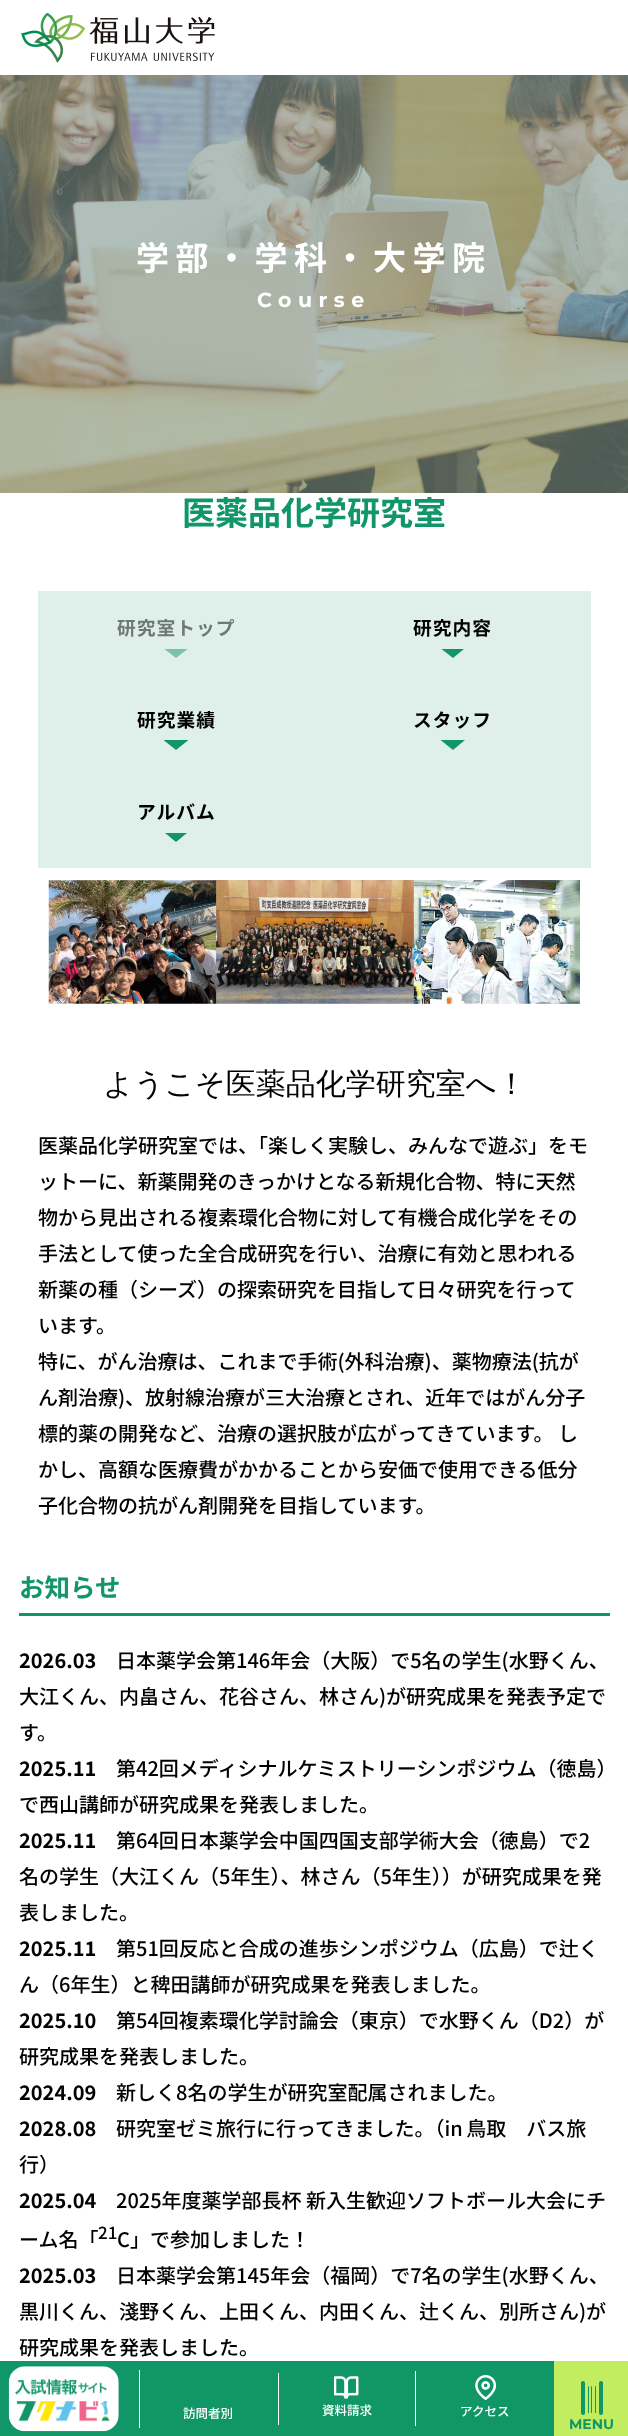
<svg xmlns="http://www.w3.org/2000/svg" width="628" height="2436">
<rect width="100%" height="100%" fill="#fff"/>
<image x="21" y="13" width="194" height="50" href="media/1.png"/>
<image x="0" y="75" width="628" height="418" href="media/2.png"/>
<text x="136" y="270" style="font-family:Noto Sans JP;font-size:33px;font-weight:bold;letter-spacing:6.5px;fill:#fff">学部・学科・大学院</text>
<text x="257" y="307" style="font-family:Montserrat;font-size:20.5px;font-weight:100;letter-spacing:6.5px;fill:#fff">Course</text>
<text x="182" y="525" style="font-family:Noto Sans JP;font-size:33px;font-weight:bold;fill:#119667">医薬品化学研究室</text>
<rect x="38" y="591" width="553" height="277" fill="#dff0ea"/>
<text x="117" y="635" style="font-family:Noto Sans JP;font-size:18.75px;font-weight:bold;letter-spacing:1px;fill:#707875">研究室トップ</text>
<path d="M187.5 649l-11.5 9l-11.5-9z" fill="#78c3a9"/>
<text x="413" y="635" style="font-family:Noto Sans JP;font-size:18.75px;font-weight:bold;letter-spacing:1px;fill:#000">研究内容</text>
<path d="M464 649l-11 9l-11.5-9z" fill="#119667"/>
<text x="137" y="727" style="font-family:Noto Sans JP;font-size:18.75px;font-weight:bold;letter-spacing:1px;fill:#000">研究業績</text>
<path d="M164 740v.5l12 9.5l12.5-10z" fill="#119667"/>
<text x="413" y="727" style="font-family:Noto Sans JP;font-size:18.75px;font-weight:bold;letter-spacing:1px;fill:#000">スタッフ</text>
<path d="M440.5 740h24.5l-12 10z" fill="#119667"/>
<text x="137" y="819" style="font-family:Noto Sans JP;font-size:18.75px;font-weight:bold;letter-spacing:1px;fill:#000">アルバム</text>
<path d="M187 833l-11 9l-11-9z" fill="#119667"/>
<image x="48" y="880" width="532" height="124" href="media/3.png"/>
<text x="103" y="1094" style="font-family:WenQuanYi Zen Hei;font-size:30px;font-weight:500;fill:#000">ようこそ医薬品化学研究室へ！</text>
<text x="38" y="1153" style="font-family:Noto Sans JP;font-size:20px;font-weight:500;fill:#000">医薬品化学研究室では、「楽しく実験し、みんなで遊ぶ」をモ</text>
<text x="38" y="1189" style="font-family:Noto Sans JP;font-size:20px;font-weight:500;fill:#000">ットーに、新薬開発のきっかけとなる新規化合物、特に天然</text>
<text x="38" y="1225" style="font-family:Noto Sans JP;font-size:20px;font-weight:500;fill:#000">物から見出される複素環化合物に対して有機合成化学をその</text>
<text x="38" y="1261" style="font-family:Noto Sans JP;font-size:20px;font-weight:500;fill:#000">手法として使った全合成研究を行い、治療に有効と思われる</text>
<text x="38" y="1297" style="font-family:Noto Sans JP;font-size:20px;font-weight:500;fill:#000">新薬の種（シーズ）の探索研究を目指して日々研究を行って</text>
<text x="38" y="1333" style="font-family:Noto Sans JP;font-size:20px;font-weight:500;fill:#000">います。</text>
<text x="38" y="1369" style="font-family:Noto Sans JP;font-size:20px;font-weight:500;fill:#000">特に、がん治療は、これまで手術(外科治療)、薬物療法(抗が</text>
<text x="38" y="1405" style="font-family:Noto Sans JP;font-size:20px;font-weight:500;fill:#000">ん剤治療)、放射線治療が三大治療とされ、近年ではがん分子</text>
<text x="38" y="1441" style="font-family:Noto Sans JP;font-size:20px;font-weight:500;fill:#000">標的薬の開発など、治療の選択肢が広がってきています。 し</text>
<text x="38" y="1477" style="font-family:Noto Sans JP;font-size:20px;font-weight:500;fill:#000">かし、高額な医療費がかかることから安価で使用できる低分</text>
<text x="38" y="1513" style="font-family:Noto Sans JP;font-size:20px;font-weight:500;fill:#000">子化合物の抗がん剤開発を目指しています。</text>
<rect x="19" y="1613" width="591" height="3" fill="#119667"/>
<text x="19" y="1597" style="font-family:Noto Sans JP;font-size:25.5px;font-weight:bold;fill:#119667">お知らせ</text>
<text x="19" y="1668" style="font-family:Noto Sans JP;font-size:20px;font-weight:bold;fill:#000">2026.03</text>
<text x="116" y="1668" style="font-family:Noto Sans JP;font-size:20px;font-weight:500;fill:#000">日本薬学会第146年会（大阪）で5名の学生(水野くん、</text>
<text x="19" y="1704" style="font-family:Noto Sans JP;font-size:20px;font-weight:500;fill:#000">大江くん、内畠さん、花谷さん、林さん)が研究成果を発表予定で</text>
<text x="19" y="1740" style="font-family:Noto Sans JP;font-size:20px;font-weight:500;fill:#000">す。</text>
<text x="19" y="1776" style="font-family:Noto Sans JP;font-size:20px;font-weight:bold;fill:#000">2025.11</text>
<text x="116" y="1776" style="font-family:Noto Sans JP;font-size:20px;font-weight:500;fill:#000">第42回メディシナルケミストリーシンポジウム（徳島）</text>
<text x="19" y="1812" style="font-family:Noto Sans JP;font-size:20px;font-weight:500;fill:#000">で西山講師が研究成果を発表しました。</text>
<text x="19" y="1848" style="font-family:Noto Sans JP;font-size:20px;font-weight:bold;fill:#000">2025.11</text>
<text x="116" y="1848" style="font-family:Noto Sans JP;font-size:20px;font-weight:500;fill:#000">第64回日本薬学会中国四国支部学術大会（徳島）で2</text>
<text x="19" y="1884" style="font-family:Noto Sans JP;font-size:20px;font-weight:500;fill:#000">名の学生（大江くん（5年生）、林さん（5年生））が研究成果を発</text>
<text x="19" y="1920" style="font-family:Noto Sans JP;font-size:20px;font-weight:500;fill:#000">表しました。</text>
<text x="19" y="1956" style="font-family:Noto Sans JP;font-size:20px;font-weight:bold;fill:#000">2025.11</text>
<text x="116" y="1956" style="font-family:Noto Sans JP;font-size:20px;font-weight:500;fill:#000">第51回反応と合成の進歩シンポジウム（広島）で辻く</text>
<text x="19" y="1992" style="font-family:Noto Sans JP;font-size:20px;font-weight:500;fill:#000">ん（6年生）と稗田講師が研究成果を発表しました。</text>
<text x="19" y="2028" style="font-family:Noto Sans JP;font-size:20px;font-weight:bold;fill:#000">2025.10</text>
<text x="116" y="2028" style="font-family:Noto Sans JP;font-size:20px;font-weight:500;fill:#000">第54回複素環化学討論会（東京）で水野くん（D2）が</text>
<text x="19" y="2064" style="font-family:Noto Sans JP;font-size:20px;font-weight:500;fill:#000">研究成果を発表しました。</text>
<text x="19" y="2100" style="font-family:Noto Sans JP;font-size:20px;font-weight:bold;fill:#000">2024.09</text>
<text x="116" y="2100" style="font-family:Noto Sans JP;font-size:20px;font-weight:500;fill:#000">新しく8名の学生が研究室配属されました。</text>
<text x="19" y="2136" style="font-family:Noto Sans JP;font-size:20px;font-weight:bold;fill:#000">2028.08</text>
<text x="116" y="2136" word-spacing="-1" style="font-family:Noto Sans JP;font-size:20px;font-weight:500;fill:#000">研究室ゼミ旅行に行ってきました。（in 鳥取　バス旅</text>
<text x="19" y="2172" style="font-family:Noto Sans JP;font-size:20px;font-weight:500;fill:#000">行）</text>
<text x="19" y="2208" style="font-family:Noto Sans JP;font-size:20px;font-weight:bold;fill:#000">2025.04</text>
<text x="116" y="2208" style="font-family:Noto Sans JP;font-size:20px;font-weight:500;fill:#000">2025年度薬学部長杯 新入生歓迎ソフトボール大会にチ</text>
<text x="19" y="2247" style="font-family:Noto Sans JP;font-size:20px;font-weight:500;fill:#000">ーム名「</text>
<text x="98" y="2239" style="font-family:Noto Sans JP;font-size:17px;font-weight:500;fill:#000">21</text>
<text x="117" y="2247" style="font-family:Noto Sans JP;font-size:20px;font-weight:500;fill:#000">C」で参加しました！</text>
<text x="19" y="2283" style="font-family:Noto Sans JP;font-size:20px;font-weight:bold;fill:#000">2025.03</text>
<text x="116" y="2283" style="font-family:Noto Sans JP;font-size:20px;font-weight:500;fill:#000">日本薬学会第145年会（福岡）で7名の学生(水野くん、</text>
<text x="19" y="2319" style="font-family:Noto Sans JP;font-size:20px;font-weight:500;fill:#000">黒川くん、淺野くん、上田くん、内田くん、辻くん、別所さん)が</text>
<text x="19" y="2355" style="font-family:Noto Sans JP;font-size:20px;font-weight:500;fill:#000">研究成果を発表しました。</text>
<rect y="2361" width="554" height="75" fill="#119667"/>
<image x="8" y="2366" width="111" height="66" href="media/4.png"/>
<rect x="139" y="2370" width="1" height="58" fill="#fff"/>
<text x="183" y="2418" style="font-family:Noto Sans JP;font-size:12.5px;font-weight:500;fill:#fff">訪問者別</text>
<rect x="278" y="2373" width="1" height="52" fill="#fff"/>
<image x="334" y="2376" width="25" height="23" href="media/5.png"/>
<text x="322" y="2415" style="font-family:Noto Sans JP;font-size:12.5px;font-weight:500;fill:#fff">資料請求</text>
<rect x="415" y="2371" width="1" height="55" fill="#fff"/>
<image x="475" y="2375" width="21" height="25" href="media/6.png"/>
<text x="460" y="2416" style="font-family:Noto Sans JP;font-size:12.5px;font-weight:500;fill:#fff">アクセス</text>
<rect x="554" y="2361" width="74" height="75" fill="#c2ed60"/>
<rect x="581" y="2381" width="4" height="34" rx="2" fill="#119667"/>
<rect x="588" y="2386" width="1" height="27" rx="0.5" fill="#119667"/>
<rect x="591" y="2386" width="1" height="27" rx="0.5" fill="#119667"/>
<rect x="595" y="2386" width="1" height="27" rx="0.5" fill="#119667"/>
<rect x="599" y="2381" width="4" height="34" rx="2" fill="#119667"/>
<text x="569" y="2429" style="font-family:Montserrat;font-size:14px;font-weight:100;fill:#119667">MENU</text>
</svg>
